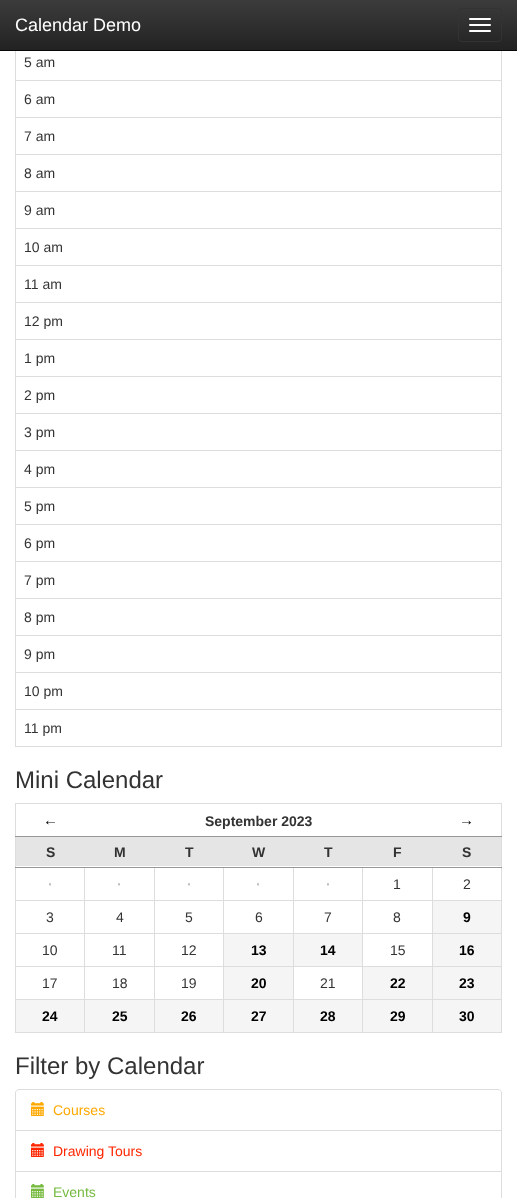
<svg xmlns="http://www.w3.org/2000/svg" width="517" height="1198">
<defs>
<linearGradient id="g1" gradientUnits="userSpaceOnUse" x1="259" y1="0" x2="259" y2="50"><stop offset="0" stop-color="#3c3c3c"/><stop offset="1" stop-color="#222"/></linearGradient>
</defs>
<rect width="100%" height="100%" fill="#fff"/>
<rect x="15.5" y="-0.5" width="486" height="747" fill="none" stroke="#ddd"/>
<rect width="517" height="50" fill="url(#g1)"/>
<rect y="50" width="517" height="1" fill="#080808"/>
<text x="15" y="31" style="font-family:Liberation Sans;font-size:18px;fill:#fff">Calendar Demo</text>
<rect x="458.5" y="8.5" width="43" height="33" rx="3.5" fill="none" stroke="#333"/>
<rect x="469" y="18" width="22" height="2" rx="1" fill="#fff"/>
<rect x="469" y="24" width="22" height="2" rx="1" fill="#fff"/>
<rect x="469" y="30" width="22" height="2" rx="1" fill="#fff"/>
<text x="24" y="67" style="font-family:Liberation Sans;font-size:14px;fill:#333">5 am</text>
<rect x="16" y="80" width="485" height="1" fill="#ddd"/>
<text x="24" y="104" style="font-family:Liberation Sans;font-size:14px;fill:#333">6 am</text>
<rect x="16" y="117" width="485" height="1" fill="#ddd"/>
<text x="24" y="141" style="font-family:Liberation Sans;font-size:14px;fill:#333">7 am</text>
<rect x="16" y="154" width="485" height="1" fill="#ddd"/>
<text x="24" y="178" style="font-family:Liberation Sans;font-size:14px;fill:#333">8 am</text>
<rect x="16" y="191" width="485" height="1" fill="#ddd"/>
<text x="24" y="215" style="font-family:Liberation Sans;font-size:14px;fill:#333">9 am</text>
<rect x="16" y="228" width="485" height="1" fill="#ddd"/>
<text x="24" y="252" style="font-family:Liberation Sans;font-size:14px;fill:#333">10 am</text>
<rect x="16" y="265" width="485" height="1" fill="#ddd"/>
<text x="24" y="289" style="font-family:Liberation Sans;font-size:14px;fill:#333">11 am</text>
<rect x="16" y="302" width="485" height="1" fill="#ddd"/>
<text x="24" y="326" style="font-family:Liberation Sans;font-size:14px;fill:#333">12 pm</text>
<rect x="16" y="339" width="485" height="1" fill="#ddd"/>
<text x="24" y="363" style="font-family:Liberation Sans;font-size:14px;fill:#333">1 pm</text>
<rect x="16" y="376" width="485" height="1" fill="#ddd"/>
<text x="24" y="400" style="font-family:Liberation Sans;font-size:14px;fill:#333">2 pm</text>
<rect x="16" y="413" width="485" height="1" fill="#ddd"/>
<text x="24" y="437" style="font-family:Liberation Sans;font-size:14px;fill:#333">3 pm</text>
<rect x="16" y="450" width="485" height="1" fill="#ddd"/>
<text x="24" y="474" style="font-family:Liberation Sans;font-size:14px;fill:#333">4 pm</text>
<rect x="16" y="487" width="485" height="1" fill="#ddd"/>
<text x="24" y="511" style="font-family:Liberation Sans;font-size:14px;fill:#333">5 pm</text>
<rect x="16" y="524" width="485" height="1" fill="#ddd"/>
<text x="24" y="548" style="font-family:Liberation Sans;font-size:14px;fill:#333">6 pm</text>
<rect x="16" y="561" width="485" height="1" fill="#ddd"/>
<text x="24" y="585" style="font-family:Liberation Sans;font-size:14px;fill:#333">7 pm</text>
<rect x="16" y="598" width="485" height="1" fill="#ddd"/>
<text x="24" y="622" style="font-family:Liberation Sans;font-size:14px;fill:#333">8 pm</text>
<rect x="16" y="635" width="485" height="1" fill="#ddd"/>
<text x="24" y="659" style="font-family:Liberation Sans;font-size:14px;fill:#333">9 pm</text>
<rect x="16" y="672" width="485" height="1" fill="#ddd"/>
<text x="24" y="696" style="font-family:Liberation Sans;font-size:14px;fill:#333">10 pm</text>
<rect x="16" y="709" width="485" height="1" fill="#ddd"/>
<text x="24" y="733" style="font-family:Liberation Sans;font-size:14px;fill:#333">11 pm</text>
<text x="15" y="788" style="font-family:Liberation Sans;font-size:24px;fill:#333">Mini Calendar</text>
<rect x="15" y="803" width="487" height="1" fill="#ddd"/>
<rect x="501" y="803" width="1" height="230" fill="#ddd"/>
<rect x="15" y="1032" width="487" height="1" fill="#ddd"/>
<rect x="15" y="803" width="1" height="230" fill="#ddd"/>
<text x="43" y="825" style="font-family:Liberation Sans;font-size:15px;font-weight:bold;fill:#000">←</text>
<text x="205" y="826" style="font-family:Liberation Sans;font-size:14px;font-weight:bold;fill:#333">September 2023</text>
<text x="459" y="825" style="font-family:Liberation Sans;font-size:15px;font-weight:bold;fill:#000">→</text>
<rect x="16" y="837" width="485" height="29" fill="#e5e5e5"/>
<text x="46" y="857" style="font-family:Liberation Sans;font-size:14px;font-weight:bold;fill:#333">S</text>
<text x="114" y="857" style="font-family:Liberation Sans;font-size:14px;font-weight:bold;fill:#333">M</text>
<text x="185" y="857" style="font-family:Liberation Sans;font-size:14px;font-weight:bold;fill:#333">T</text>
<text x="252" y="857" style="font-family:Liberation Sans;font-size:14px;font-weight:bold;fill:#333">W</text>
<text x="324" y="857" style="font-family:Liberation Sans;font-size:14px;font-weight:bold;fill:#333">T</text>
<text x="393" y="857" style="font-family:Liberation Sans;font-size:14px;font-weight:bold;fill:#333">F</text>
<rect x="15" y="836" width="487" height="1" fill="#979797"/>
<rect x="432" y="900" width="70" height="1" fill="#ddd"/>
<rect x="432" y="933" width="70" height="1" fill="#ddd"/>
<rect x="432" y="966" width="70" height="1" fill="#ddd"/>
<rect x="432" y="999" width="70" height="1" fill="#ddd"/>
<rect x="432" y="999" width="1" height="34" fill="#ddd"/>
<rect x="362" y="999" width="71" height="1" fill="#ddd"/>
<rect x="432" y="966" width="1" height="34" fill="#ddd"/>
<rect x="362" y="966" width="71" height="1" fill="#ddd"/>
<rect x="432" y="933" width="1" height="34" fill="#ddd"/>
<rect x="362" y="933" width="71" height="1" fill="#ddd"/>
<rect x="432" y="900" width="1" height="34" fill="#ddd"/>
<rect x="362" y="900" width="71" height="1" fill="#ddd"/>
<rect x="362" y="999" width="1" height="34" fill="#ddd"/>
<rect x="293" y="999" width="70" height="1" fill="#ddd"/>
<rect x="362" y="966" width="1" height="34" fill="#ddd"/>
<rect x="293" y="966" width="70" height="1" fill="#ddd"/>
<rect x="362" y="933" width="1" height="34" fill="#ddd"/>
<rect x="293" y="933" width="70" height="1" fill="#ddd"/>
<rect x="362" y="900" width="1" height="34" fill="#ddd"/>
<rect x="293" y="900" width="70" height="1" fill="#ddd"/>
<rect x="293" y="999" width="1" height="34" fill="#ddd"/>
<rect x="223" y="999" width="71" height="1" fill="#ddd"/>
<rect x="293" y="966" width="1" height="34" fill="#ddd"/>
<rect x="223" y="966" width="71" height="1" fill="#ddd"/>
<rect x="293" y="933" width="1" height="34" fill="#ddd"/>
<rect x="223" y="933" width="71" height="1" fill="#ddd"/>
<rect x="293" y="900" width="1" height="34" fill="#ddd"/>
<rect x="223" y="900" width="71" height="1" fill="#ddd"/>
<rect x="223" y="999" width="1" height="34" fill="#ddd"/>
<rect x="154" y="999" width="70" height="1" fill="#ddd"/>
<rect x="223" y="966" width="1" height="34" fill="#ddd"/>
<rect x="154" y="966" width="70" height="1" fill="#ddd"/>
<rect x="223" y="933" width="1" height="34" fill="#ddd"/>
<rect x="154" y="933" width="70" height="1" fill="#ddd"/>
<rect x="223" y="900" width="1" height="34" fill="#ddd"/>
<rect x="154" y="900" width="70" height="1" fill="#ddd"/>
<rect x="154" y="999" width="1" height="34" fill="#ddd"/>
<rect x="84" y="999" width="71" height="1" fill="#ddd"/>
<rect x="154" y="966" width="1" height="34" fill="#ddd"/>
<rect x="84" y="966" width="71" height="1" fill="#ddd"/>
<rect x="154" y="933" width="1" height="34" fill="#ddd"/>
<rect x="84" y="933" width="71" height="1" fill="#ddd"/>
<rect x="154" y="900" width="1" height="34" fill="#ddd"/>
<rect x="84" y="900" width="71" height="1" fill="#ddd"/>
<rect x="84" y="999" width="1" height="34" fill="#ddd"/>
<rect x="15" y="999" width="70" height="1" fill="#ddd"/>
<rect x="84" y="966" width="1" height="34" fill="#ddd"/>
<rect x="15" y="966" width="70" height="1" fill="#ddd"/>
<rect x="84" y="933" width="1" height="34" fill="#ddd"/>
<rect x="15" y="933" width="70" height="1" fill="#ddd"/>
<rect x="84" y="900" width="1" height="34" fill="#ddd"/>
<rect x="15" y="900" width="70" height="1" fill="#ddd"/>
<rect x="84" y="867" width="1" height="34" fill="#ddd"/>
<rect x="154" y="867" width="1" height="34" fill="#ddd"/>
<rect x="223" y="867" width="1" height="34" fill="#ddd"/>
<rect x="293" y="867" width="1" height="34" fill="#ddd"/>
<rect x="362" y="867" width="1" height="34" fill="#ddd"/>
<rect x="432" y="867" width="1" height="34" fill="#ddd"/>
<rect x="15" y="867" width="487" height="1" fill="#979797"/>
<text x="462" y="857" style="font-family:Liberation Sans;font-size:14px;font-weight:bold;fill:#333">S</text>
<text x="48" y="889" style="font-family:Liberation Sans;font-size:14px;font-weight:bold;fill:#bcbcbc">·</text>
<text x="117" y="889" style="font-family:Liberation Sans;font-size:14px;font-weight:bold;fill:#bcbcbc">·</text>
<text x="187" y="889" style="font-family:Liberation Sans;font-size:14px;font-weight:bold;fill:#bcbcbc">·</text>
<text x="256" y="889" style="font-family:Liberation Sans;font-size:14px;font-weight:bold;fill:#bcbcbc">·</text>
<text x="326" y="889" style="font-family:Liberation Sans;font-size:14px;font-weight:bold;fill:#bcbcbc">·</text>
<text x="393" y="889" style="font-family:Liberation Sans;font-size:14px;fill:#333">1</text>
<text x="463" y="889" style="font-family:Liberation Sans;font-size:14px;fill:#333">2</text>
<text x="46" y="922" style="font-family:Liberation Sans;font-size:14px;fill:#333">3</text>
<text x="116" y="922" style="font-family:Liberation Sans;font-size:14px;fill:#333">4</text>
<text x="185" y="922" style="font-family:Liberation Sans;font-size:14px;fill:#333">5</text>
<text x="255" y="922" style="font-family:Liberation Sans;font-size:14px;fill:#333">6</text>
<text x="324" y="922" style="font-family:Liberation Sans;font-size:14px;fill:#333">7</text>
<text x="393" y="922" style="font-family:Liberation Sans;font-size:14px;fill:#333">8</text>
<rect x="433" y="901" width="68" height="32" fill="#f5f5f5"/>
<text x="463" y="922" style="font-family:Liberation Sans;font-size:14px;font-weight:bold;fill:#000">9</text>
<text x="42" y="955" style="font-family:Liberation Sans;font-size:14px;fill:#333">10</text>
<text x="112" y="955" style="font-family:Liberation Sans;font-size:14px;fill:#333">11</text>
<text x="181" y="955" style="font-family:Liberation Sans;font-size:14px;fill:#333">12</text>
<rect x="224" y="934" width="69" height="32" fill="#f5f5f5"/>
<text x="251" y="955" style="font-family:Liberation Sans;font-size:14px;font-weight:bold;fill:#000">13</text>
<rect x="294" y="934" width="68" height="32" fill="#f5f5f5"/>
<text x="320" y="955" style="font-family:Liberation Sans;font-size:14px;font-weight:bold;fill:#000">14</text>
<text x="390" y="955" style="font-family:Liberation Sans;font-size:14px;fill:#333">15</text>
<rect x="433" y="934" width="68" height="32" fill="#f5f5f5"/>
<text x="459" y="955" style="font-family:Liberation Sans;font-size:14px;font-weight:bold;fill:#000">16</text>
<text x="42" y="988" style="font-family:Liberation Sans;font-size:14px;fill:#333">17</text>
<text x="112" y="988" style="font-family:Liberation Sans;font-size:14px;fill:#333">18</text>
<text x="181" y="988" style="font-family:Liberation Sans;font-size:14px;fill:#333">19</text>
<rect x="224" y="967" width="69" height="32" fill="#f5f5f5"/>
<text x="251" y="988" style="font-family:Liberation Sans;font-size:14px;font-weight:bold;fill:#000">20</text>
<text x="320" y="988" style="font-family:Liberation Sans;font-size:14px;fill:#333">21</text>
<rect x="363" y="967" width="69" height="32" fill="#f5f5f5"/>
<text x="390" y="988" style="font-family:Liberation Sans;font-size:14px;font-weight:bold;fill:#000">22</text>
<rect x="433" y="967" width="68" height="32" fill="#f5f5f5"/>
<text x="459" y="988" style="font-family:Liberation Sans;font-size:14px;font-weight:bold;fill:#000">23</text>
<rect x="16" y="1000" width="68" height="32" fill="#f5f5f5"/>
<text x="42" y="1021" style="font-family:Liberation Sans;font-size:14px;font-weight:bold;fill:#000">24</text>
<rect x="85" y="1000" width="69" height="32" fill="#f5f5f5"/>
<text x="112" y="1021" style="font-family:Liberation Sans;font-size:14px;font-weight:bold;fill:#000">25</text>
<rect x="155" y="1000" width="68" height="32" fill="#f5f5f5"/>
<text x="181" y="1021" style="font-family:Liberation Sans;font-size:14px;font-weight:bold;fill:#000">26</text>
<rect x="224" y="1000" width="69" height="32" fill="#f5f5f5"/>
<text x="251" y="1021" style="font-family:Liberation Sans;font-size:14px;font-weight:bold;fill:#000">27</text>
<rect x="294" y="1000" width="68" height="32" fill="#f5f5f5"/>
<text x="320" y="1021" style="font-family:Liberation Sans;font-size:14px;font-weight:bold;fill:#000">28</text>
<rect x="363" y="1000" width="69" height="32" fill="#f5f5f5"/>
<text x="390" y="1021" style="font-family:Liberation Sans;font-size:14px;font-weight:bold;fill:#000">29</text>
<rect x="433" y="1000" width="68" height="32" fill="#f5f5f5"/>
<text x="459" y="1021" style="font-family:Liberation Sans;font-size:14px;font-weight:bold;fill:#000">30</text>
<text x="15" y="1074" style="font-family:Liberation Sans;font-size:24px;fill:#333">Filter by Calendar</text>
<path d="M19 1089.5h479c2 0 3.5 1.5 3.5 3.5v37.5h-486v-37.5c0-2 1.5-3.5 3.5-3.5z" fill="none" stroke="#ddd"/>
<image x="31" y="1102" width="13" height="14" href="media/1.png"/>
<text x="53" y="1115" style="font-family:Liberation Sans;font-size:14px;fill:#ffa900">Courses</text>
<rect x="15.5" y="1130.5" width="486" height="41" fill="none" stroke="#ddd"/>
<image x="31" y="1143" width="13" height="14" href="media/2.png"/>
<text x="53" y="1156" style="font-family:Liberation Sans;font-size:14px;fill:#ff2600">Drawing Tours</text>
<rect x="15.5" y="1171.5" width="486" height="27" fill="none" stroke="#ddd"/>
<image x="31" y="1184" width="13" height="14" href="media/3.png"/>
<text x="53" y="1197" style="font-family:Liberation Sans;font-size:14px;fill:#76ba40">Events</text>
</svg>
